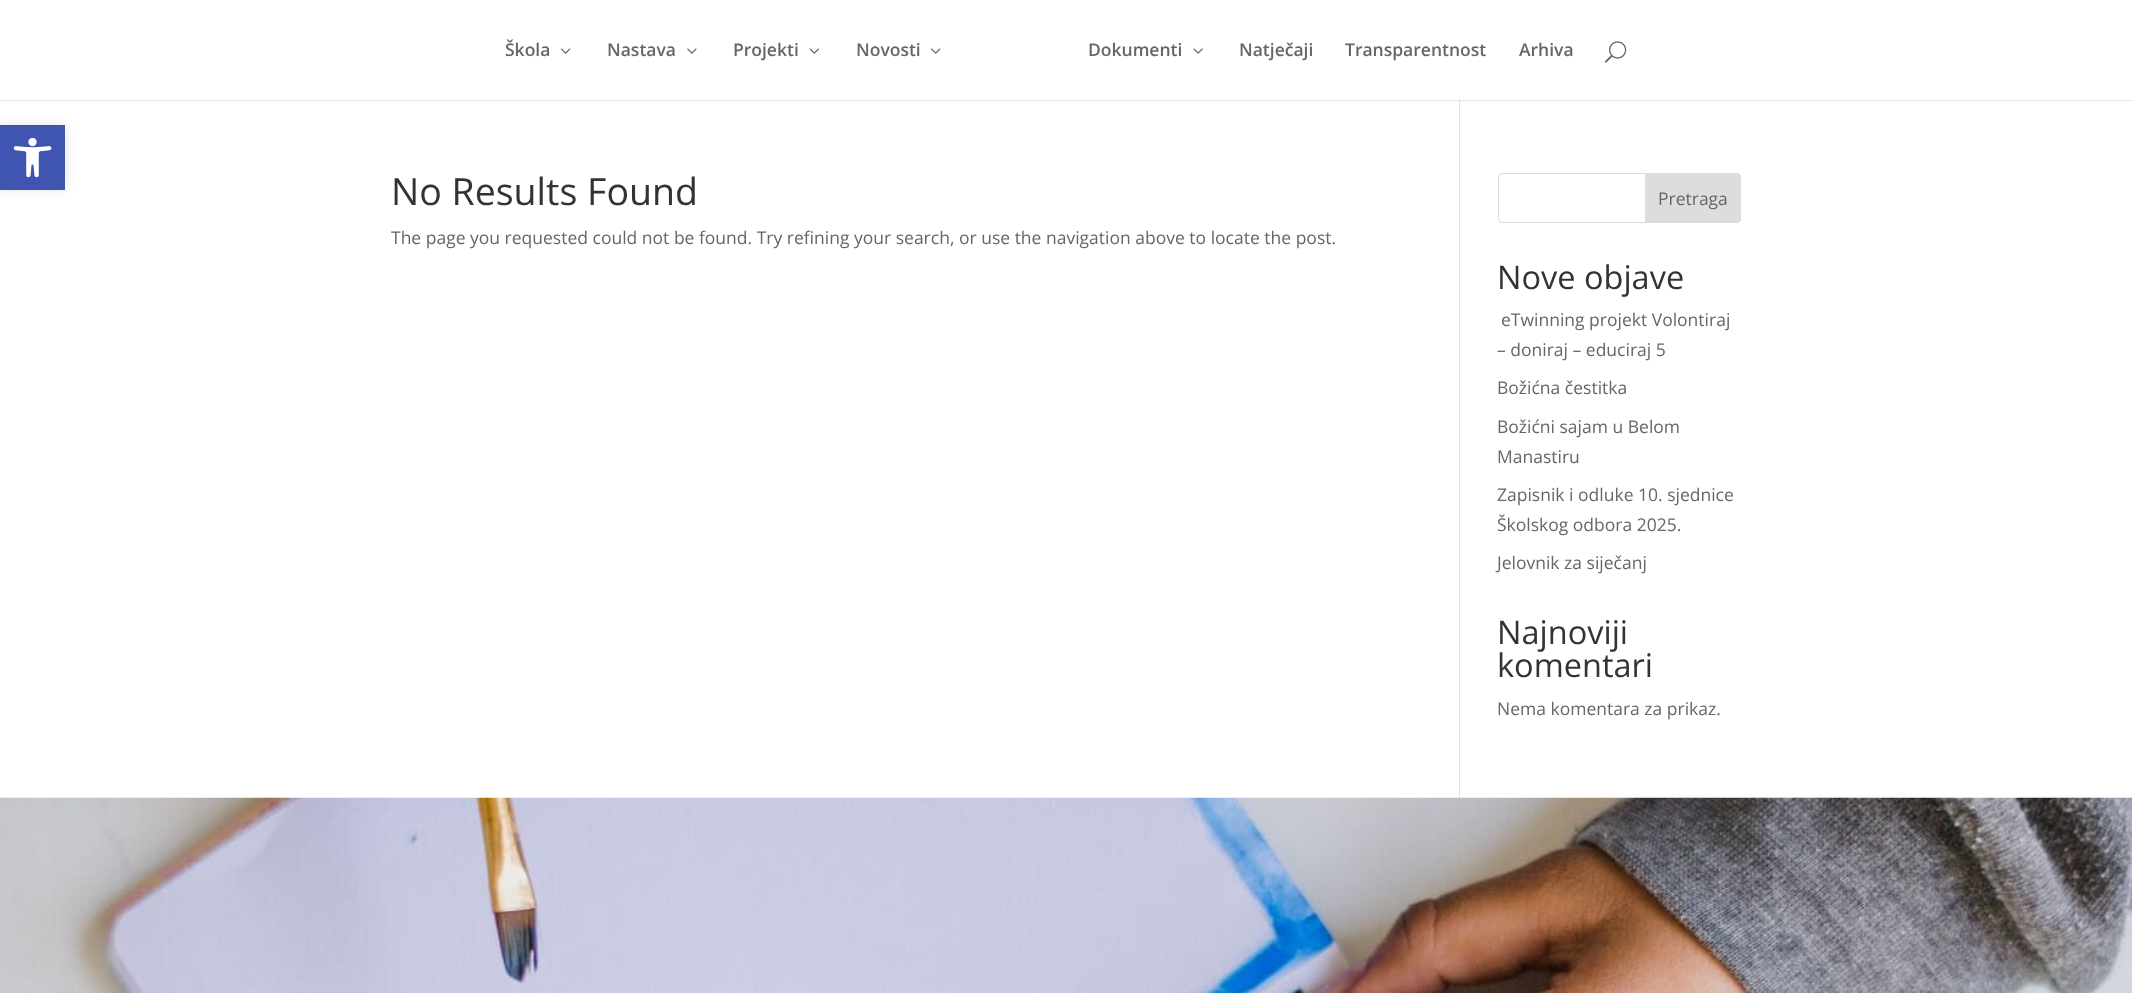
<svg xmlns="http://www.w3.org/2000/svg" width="2132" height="993">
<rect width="100%" height="100%" fill="#fff"/>
<rect y="125" width="65" height="65" fill="#0000001a" filter="blur(6px)"/>
<rect y="125" width="65" height="65" fill="#4054b2"/>
<image x="13" y="138" width="39" height="40" href="media/1.png"/>
<rect x="1459" y="100" width="1" height="698" fill="#e2e2e2"/>
<path d="M0 100v1h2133v-100h-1v99z" fill="#0000001a"/>
<text x="505" y="56" style="font-family:Open Sans;font-size:17.5px;font-weight:600;fill:#666">Škola</text>
<image x="561" y="48" width="10" height="6" href="media/2.png"/>
<text x="607" y="56" style="font-family:Open Sans;font-size:17.5px;font-weight:600;fill:#666">Nastava</text>
<image x="687" y="48" width="10" height="6" href="media/3.png"/>
<text x="733" y="56" style="font-family:Open Sans;font-size:17.5px;font-weight:600;fill:#666">Projekti</text>
<image x="809" y="48" width="10" height="6" href="media/4.png"/>
<text x="856" y="56" style="font-family:Open Sans;font-size:17.5px;font-weight:600;fill:#666">Novosti</text>
<image x="931" y="48" width="10" height="6" href="media/2.png"/>
<text x="1088" y="56" style="font-family:Open Sans;font-size:17.5px;font-weight:600;fill:#666">Dokumenti</text>
<image x="1193" y="48" width="10" height="6" href="media/5.png"/>
<text x="1239" y="56" style="font-family:Open Sans;font-size:17.5px;font-weight:600;fill:#666">Natječaji</text>
<text x="1345" y="56" style="font-family:Open Sans;font-size:17.5px;font-weight:600;fill:#666">Transparentnost</text>
<text x="1519" y="56" style="font-family:Open Sans;font-size:17.5px;font-weight:600;fill:#666">Arhiva</text>
<image x="1605" y="41" width="22" height="22" href="media/6.png"/>
<text x="391" y="205" style="font-family:Open Sans;font-size:37.5px;fill:#333">No Results Found</text>
<text x="391" y="244" style="font-family:Open Sans;font-size:17.5px;fill:#666">The page you requested could not be found. Try refining your search, or use the navigation above to locate the post.</text>
<rect x="1498.5" y="173.5" width="242" height="49" rx="3.5" fill="none" stroke="#ddd"/>
<path d="M1645.5 173.5h91.5c2 0 3.5 1.5 3.5 3.5v42c0 2-1.5 3.5-3.5 3.5h-91.5z" fill="#ddd" stroke="#ddd"/>
<text x="1658" y="205" style="font-family:Open Sans;font-size:17.5px;fill:#666">Pretraga</text>
<text x="1497" y="289" style="font-family:Open Sans;font-size:32.5px;fill:#333">Nove objave</text>
<text x="1501" y="326" style="font-family:Open Sans;font-size:17.5px;fill:#666">eTwinning projekt Volontiraj</text>
<text x="1497" y="356" style="font-family:Open Sans;font-size:17.5px;fill:#666">– doniraj – educiraj 5</text>
<text x="1497" y="394" style="font-family:Open Sans;font-size:17.5px;fill:#666">Božićna čestitka</text>
<text x="1497" y="433" style="font-family:Open Sans;font-size:17.5px;fill:#666">Božićni sajam u Belom</text>
<text x="1497" y="463" style="font-family:Open Sans;font-size:17.5px;fill:#666">Manastiru</text>
<text x="1497" y="501" style="font-family:Open Sans;font-size:17.5px;fill:#666">Zapisnik i odluke 10. sjednice</text>
<text x="1497" y="531" style="font-family:Open Sans;font-size:17.5px;fill:#666">Školskog odbora 2025.</text>
<text x="1497" y="569" style="font-family:Open Sans;font-size:17.5px;fill:#666">Jelovnik za siječanj</text>
<text x="1497" y="644" style="font-family:Open Sans;font-size:32.5px;fill:#333">Najnoviji</text>
<text x="1497" y="677" style="font-family:Open Sans;font-size:32.5px;fill:#333">komentari</text>
<text x="1497" y="715" style="font-family:Open Sans;font-size:17.5px;fill:#666">Nema komentara za prikaz.</text>
<image x="0" y="797" width="2132" height="196" href="media/7.png"/>
</svg>
